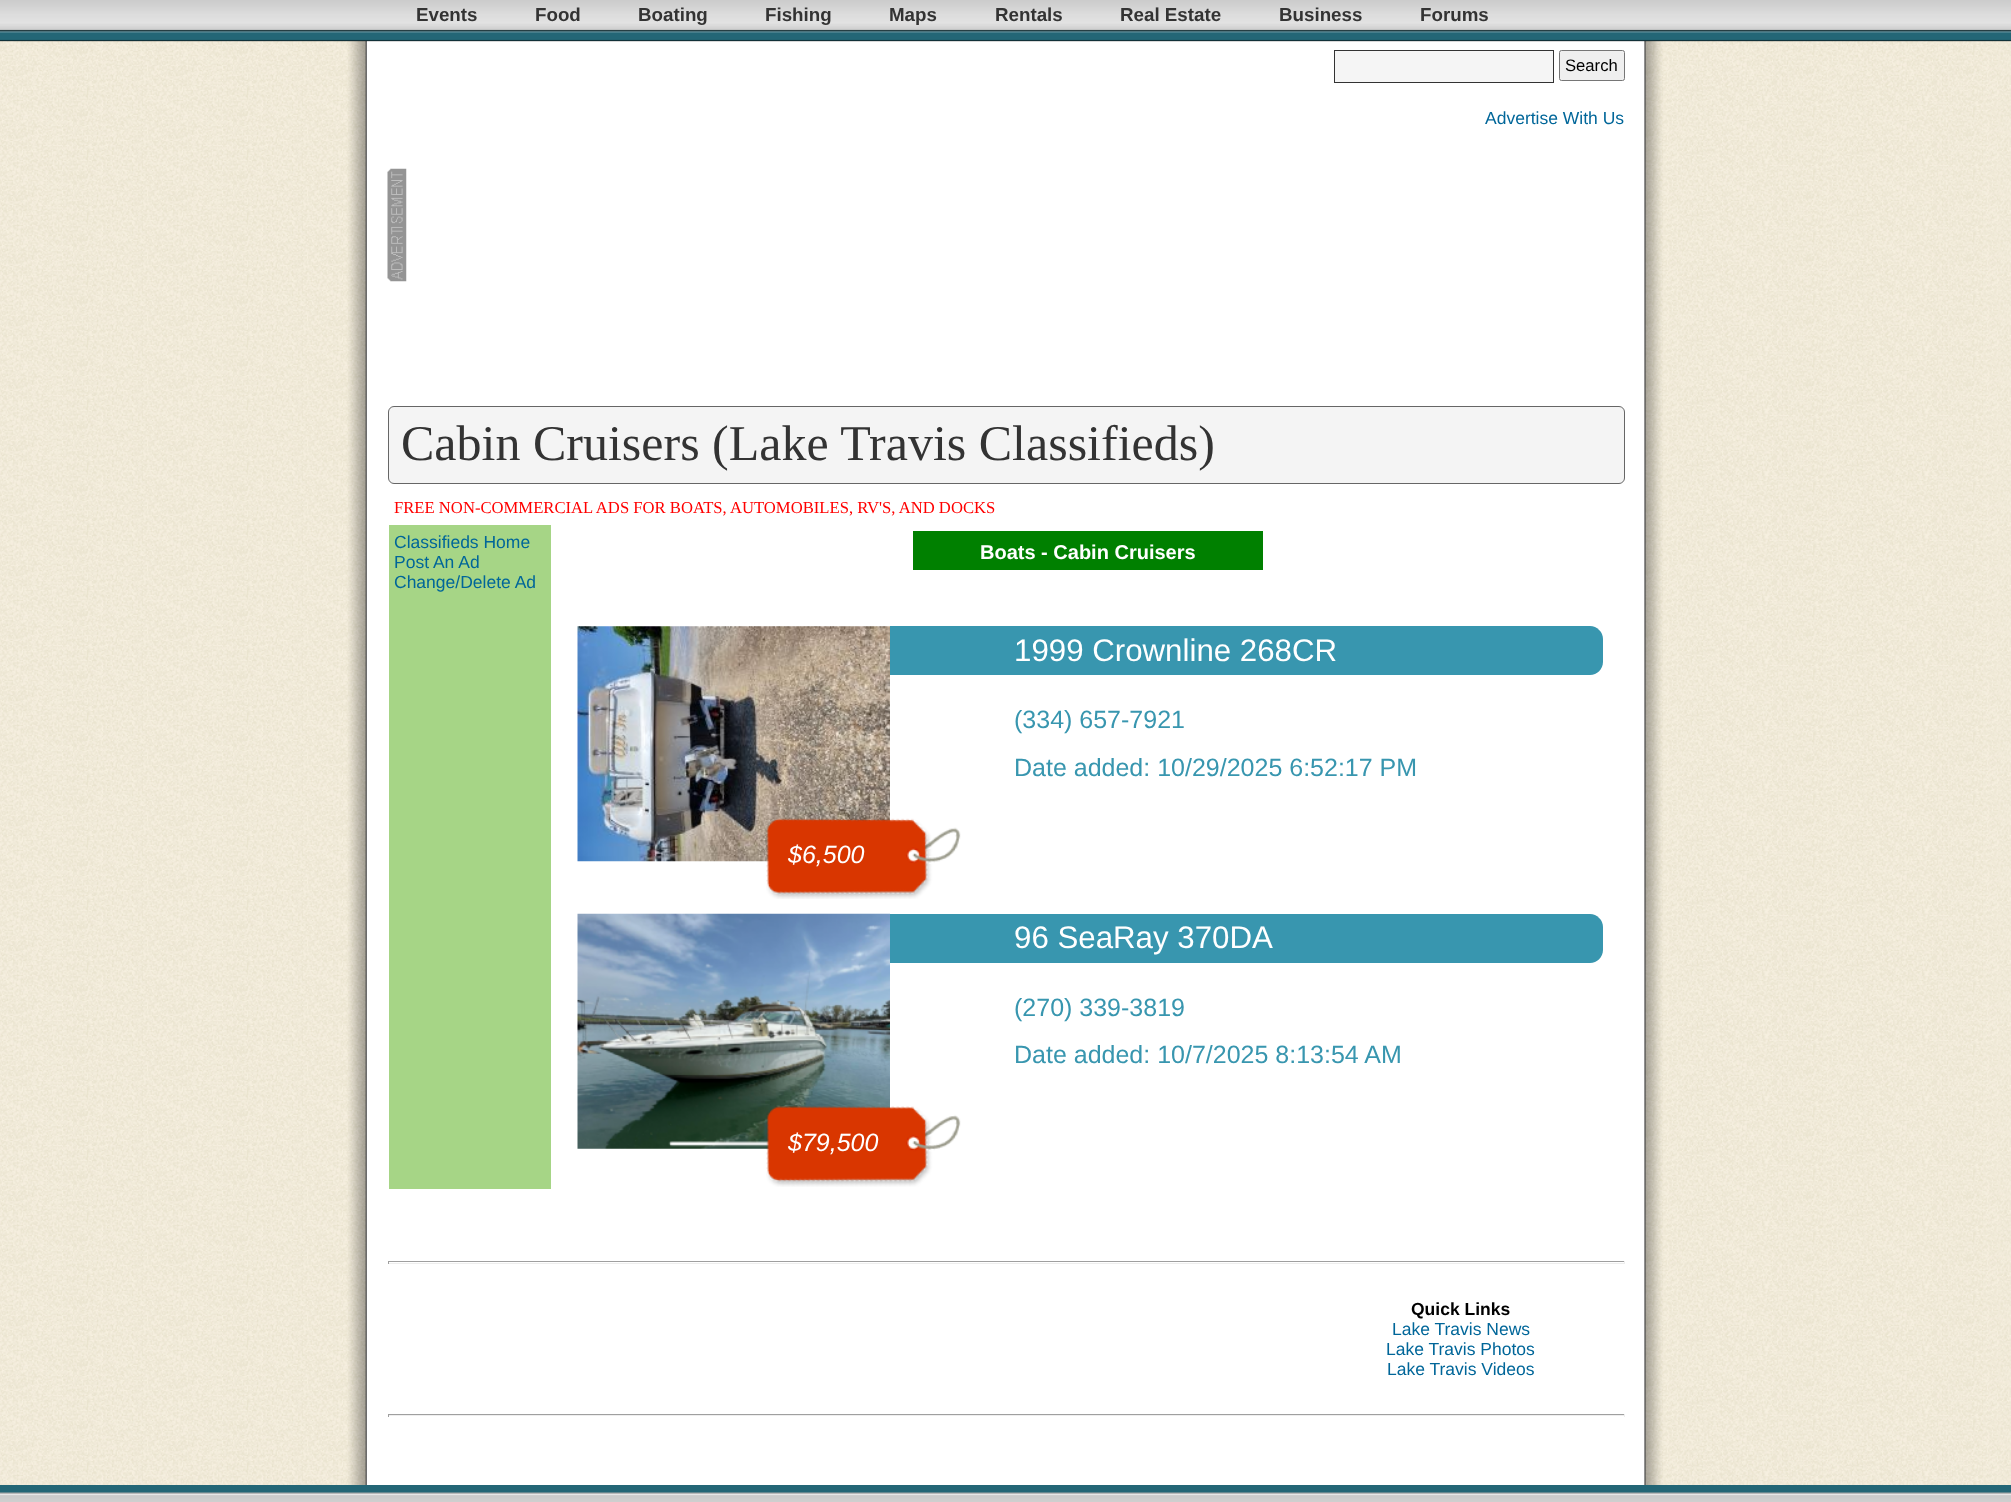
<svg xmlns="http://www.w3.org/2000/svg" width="2011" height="1502">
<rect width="100%" height="100%" fill="#fff"/>
<image x="0" y="41" width="2011" height="1444" href="media/1.png"/>
<rect y="29" width="2011" height="12" fill="#236676"/>
<image x="0" y="0" width="2011" height="42" href="media/2.png"/>
<text x="416" y="21" style="font-family:Liberation Sans;font-size:18.75px;font-weight:bold;fill:#333">Events</text>
<text x="535" y="21" style="font-family:Liberation Sans;font-size:18.75px;font-weight:bold;fill:#333">Food</text>
<text x="638" y="21" style="font-family:Liberation Sans;font-size:18.75px;font-weight:bold;fill:#333">Boating</text>
<text x="765" y="21" style="font-family:Liberation Sans;font-size:18.75px;font-weight:bold;fill:#333">Fishing</text>
<text x="889" y="21" style="font-family:Liberation Sans;font-size:18.75px;font-weight:bold;fill:#333">Maps</text>
<text x="995" y="21" style="font-family:Liberation Sans;font-size:18.75px;font-weight:bold;fill:#333">Rentals</text>
<text x="1120" y="21" style="font-family:Liberation Sans;font-size:18.75px;font-weight:bold;fill:#333">Real Estate</text>
<text x="1279" y="21" style="font-family:Liberation Sans;font-size:18.75px;font-weight:bold;fill:#333">Business</text>
<text x="1420" y="21" style="font-family:Liberation Sans;font-size:18.75px;font-weight:bold;fill:#333">Forums</text>
<rect x="1334.5" y="50.5" width="219" height="32" fill="#f5f5f5" stroke="#333"/>
<rect x="1559.5" y="50.5" width="65" height="30" rx="2" fill="#efefef" stroke="#767676"/>
<text x="1565" y="71" style="font-family:Liberation Sans;font-size:16.65px;fill:#000">Search</text>
<text x="1485" y="124" style="font-family:Liberation Sans;font-size:17.5px;fill:#069">Advertise With Us</text>
<image x="387" y="168" width="20" height="114" href="media/3.png"/>
<rect x="388.5" y="406.5" width="1236" height="77" rx="5.5" fill="#f4f4f4" stroke="#666"/>
<text x="401" y="460" style="font-family:Liberation Serif;font-size:50px;fill:#333">Cabin Cruisers (Lake Travis Classifieds)</text>
<text x="394" y="513" style="font-family:Liberation Serif;font-size:16.65px;fill:#f00">FREE NON-COMMERCIAL ADS FOR BOATS, AUTOMOBILES, RV'S, AND DOCKS</text>
<rect x="389" y="525" width="162" height="664" fill="#a6d586"/>
<text x="394" y="548" style="font-family:Liberation Sans;font-size:17.5px;fill:#069">Classifieds Home</text>
<text x="394" y="568" style="font-family:Liberation Sans;font-size:17.5px;fill:#069">Post An Ad</text>
<text x="394" y="588" style="font-family:Liberation Sans;font-size:17.5px;fill:#069">Change/Delete Ad</text>
<rect x="913" y="531" width="350" height="39" fill="#008000"/>
<text x="980" y="559" style="font-family:Liberation Sans;font-size:20px;font-weight:bold;fill:#fff">Boats - Cabin Cruisers</text>
<image x="577" y="626" width="313" height="236" href="media/4.png"/>
<path d="M890 626h700c7 0 13 6 13 13v23c0 7-6 13-13 13h-700z" fill="#3896af"/>
<text x="1014" y="661" style="font-family:Liberation Sans;font-size:31.25px;fill:#fff">1999 Crownline 268CR</text>
<text x="1014" y="728" style="font-family:Liberation Sans;font-size:25px;fill:#3896af">(334) 657-7921</text>
<text x="1014" y="776" style="font-family:Liberation Sans;font-size:25px;fill:#3896af">Date added: 10/29/2025 6:52:17 PM</text>
<image x="766" y="818" width="195" height="81" href="media/5.png"/>
<text x="788" y="863" style="font-family:Liberation Sans;font-size:25px;font-style:italic;fill:#fff">$6,500</text>
<image x="577" y="913" width="313" height="236" href="media/6.png"/>
<path d="M890 914h700c7 0 13 6 13 13v23c0 7-6 13-13 13h-700z" fill="#3896af"/>
<text x="1014" y="948" style="font-family:Liberation Sans;font-size:31.25px;fill:#fff">96 SeaRay 370DA</text>
<text x="1014" y="1016" style="font-family:Liberation Sans;font-size:25px;fill:#3896af">(270) 339-3819</text>
<text x="1014" y="1063" style="font-family:Liberation Sans;font-size:25px;fill:#3896af">Date added: 10/7/2025 8:13:54 AM</text>
<image x="766" y="1106" width="195" height="81" href="media/7.png"/>
<text x="788" y="1151" style="font-family:Liberation Sans;font-size:25px;font-style:italic;fill:#fff">$79,500</text>
<rect x="388" y="1261" width="1237" height="1" fill="#9f9f9f"/>
<rect x="1624" y="1261" width="1" height="3" fill="#eee"/>
<rect x="388" y="1263" width="1237" height="1" fill="#eee"/>
<rect x="388" y="1261" width="1" height="3" fill="#9f9f9f"/>
<text x="1411" y="1315" style="font-family:Liberation Sans;font-size:17.5px;font-weight:bold;fill:#000">Quick Links</text>
<text x="1392" y="1335" style="font-family:Liberation Sans;font-size:17.5px;fill:#069">Lake Travis News</text>
<text x="1386" y="1355" style="font-family:Liberation Sans;font-size:17.5px;fill:#069">Lake Travis Photos</text>
<text x="1387" y="1375" style="font-family:Liberation Sans;font-size:17.5px;fill:#069">Lake Travis Videos</text>
<rect x="388" y="1414" width="1237" height="1" fill="#9f9f9f"/>
<rect x="1624" y="1414" width="1" height="3" fill="#eee"/>
<rect x="388" y="1415" width="1237" height="1" fill="#eee"/>
<rect x="388" y="1414" width="1" height="3" fill="#9f9f9f"/>
<rect y="1485" width="2011" height="8" fill="#236676"/>
<image x="0" y="1492" width="2011" height="10" href="media/8.png"/>
</svg>
